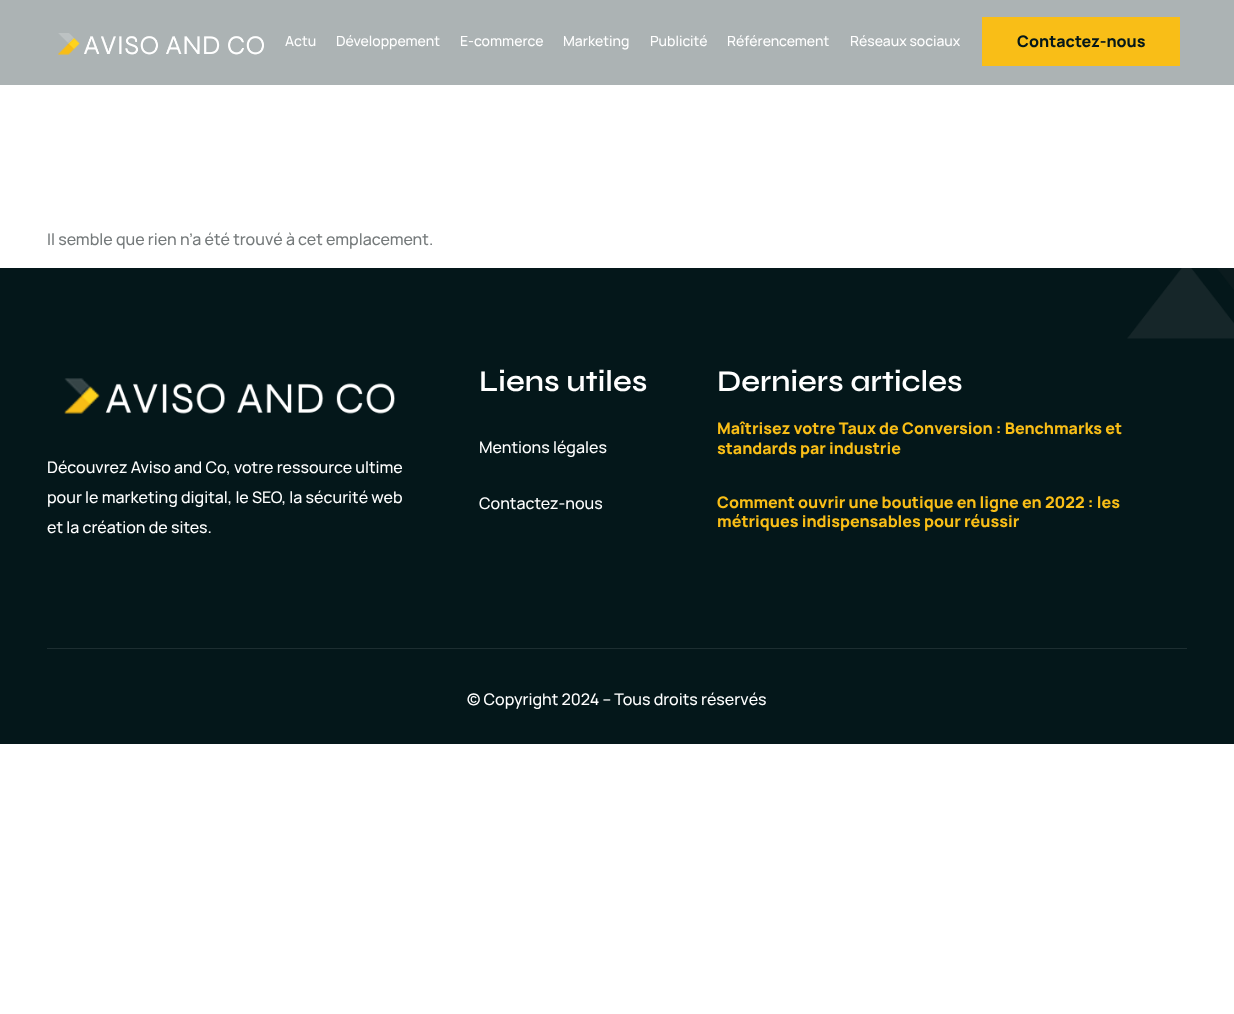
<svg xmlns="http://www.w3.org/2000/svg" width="1234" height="1014">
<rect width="100%" height="100%" fill="#fff"/>
<rect width="1234" height="85" fill="#acb3b4"/>
<image x="58" y="33" width="206" height="22" href="media/1.png"/>
<text x="285" y="46" style="font-family:Manrope;font-size:14px;font-weight:500;fill:#fff">Actu</text>
<text x="336" y="46" style="font-family:Manrope;font-size:14px;font-weight:500;fill:#fff">Développement</text>
<text x="460" y="46" style="font-family:Manrope;font-size:14px;font-weight:500;fill:#fff">E-commerce</text>
<text x="563" y="46" style="font-family:Manrope;font-size:14px;font-weight:500;fill:#fff">Marketing</text>
<text x="650" y="46" style="font-family:Manrope;font-size:14px;font-weight:500;fill:#fff">Publicité</text>
<text x="727" y="46" style="font-family:Manrope;font-size:14px;font-weight:500;fill:#fff">Référencement</text>
<text x="850" y="46" style="font-family:Manrope;font-size:14px;font-weight:500;fill:#fff">Réseaux sociaux</text>
<rect x="982" y="17" width="198" height="49" fill="#f9be17"/>
<text x="1017" y="47" style="font-family:Manrope;font-size:16px;font-weight:800;fill:#04171a">Contactez-nous</text>
<text x="47" y="245" style="font-family:Manrope;font-size:16px;font-weight:500;fill:#757a7b">Il semble que rien n’a été trouvé à cet emplacement.</text>
<rect y="268" width="1234" height="476" fill="#04171a"/>
<image x="1127" y="268" width="107" height="71" href="media/2.png"/>
<image x="64" y="378" width="331" height="36" href="media/3.png"/>
<text x="47" y="473" style="font-family:Manrope;font-size:16px;font-weight:500;fill:#fff">Découvrez Aviso and Co, votre ressource ultime</text>
<text x="47" y="503" style="font-family:Manrope;font-size:16px;font-weight:500;fill:#fff">pour le marketing digital, le SEO, la sécurité web</text>
<text x="47" y="533" style="font-family:Manrope;font-size:16px;font-weight:500;fill:#fff">et la création de sites.</text>
<text x="479" y="391" style="font-family:Syne;font-size:30px;font-weight:600;fill:#fff">Liens utiles</text>
<text x="479" y="453" style="font-family:Manrope;font-size:16px;font-weight:500;fill:#fff">Mentions légales</text>
<text x="479" y="509" style="font-family:Manrope;font-size:16px;font-weight:500;fill:#fff">Contactez-nous</text>
<text x="717" y="391" style="font-family:Syne;font-size:30px;font-weight:600;fill:#fff">Derniers articles</text>
<text x="717" y="434" style="font-family:Manrope;font-size:16px;font-weight:800;fill:#f9be17">Maîtrisez votre Taux de Conversion : Benchmarks et</text>
<text x="717" y="454" style="font-family:Manrope;font-size:16px;font-weight:800;fill:#f9be17">standards par industrie</text>
<text x="717" y="508" style="font-family:Manrope;font-size:16px;font-weight:800;fill:#f9be17">Comment ouvrir une boutique en ligne en 2022 : les</text>
<text x="717" y="527" style="font-family:Manrope;font-size:16px;font-weight:800;fill:#f9be17">métriques indispensables pour réussir</text>
<rect x="47" y="648" width="1140" height="1" fill="#1d2e31"/>
<text x="467" y="705" style="font-family:Manrope;font-size:16px;font-weight:500;fill:#fff">© Copyright 2024 – Tous droits réservés</text>
</svg>
